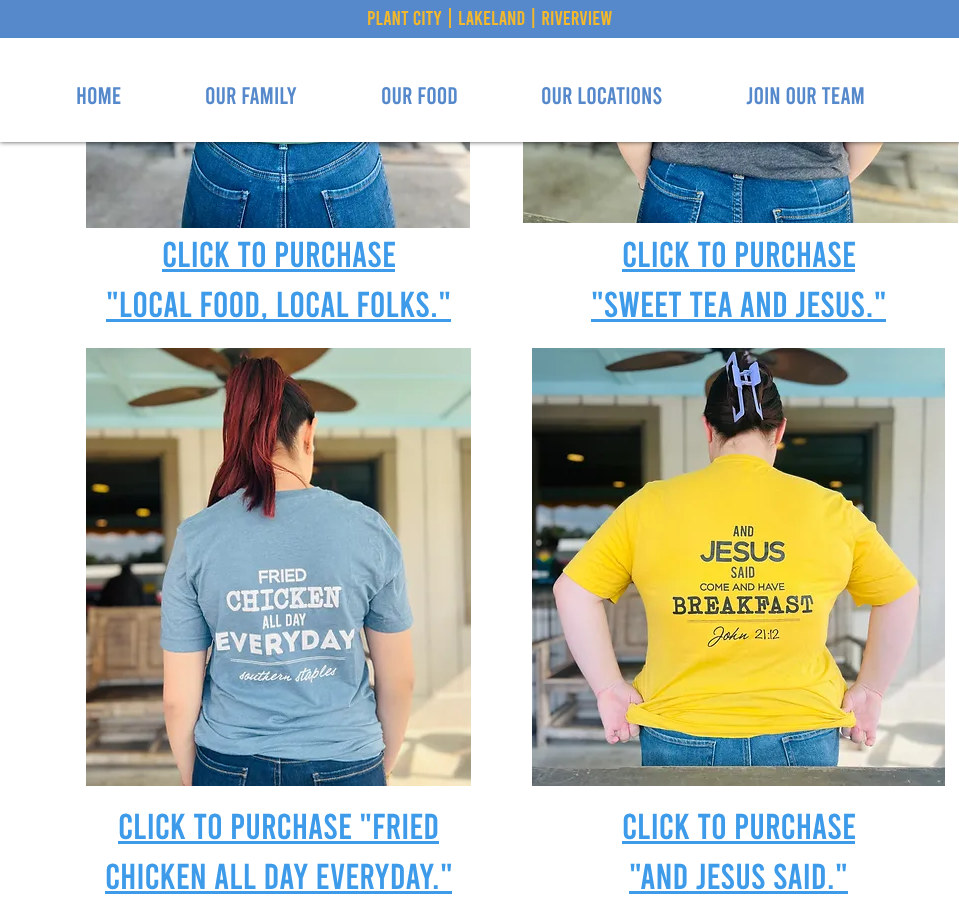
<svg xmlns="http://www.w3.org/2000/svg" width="959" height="918">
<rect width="100%" height="100%" fill="#fff"/>
<image x="86" y="142" width="384" height="86" href="media/1.png"/>
<image x="523" y="142" width="435" height="81" href="media/2.png"/>
<rect width="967" height="142" fill="#000000b3" filter="blur(2.5px)"/>
<rect y="38" width="959" height="104" fill="#fff"/>
<rect width="959" height="38" fill="#5689cb"/>
<text x="367" y="25" style="font-family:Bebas;font-size:20px;fill:#f3b82c">PLANT CITY | LAKELAND | RIVERVIEW</text>
<text x="76" y="104" style="font-family:Bebas;font-size:24px;fill:#5689cb">HOME</text>
<text x="205" y="104" style="font-family:Bebas;font-size:24px;fill:#5689cb">OUR FAMILY</text>
<text x="381" y="104" style="font-family:Bebas;font-size:24px;fill:#5689cb">OUR FOOD</text>
<text x="541" y="104" style="font-family:Bebas;font-size:24px;fill:#5689cb">OUR LOCATIONS</text>
<text x="746" y="104" style="font-family:Bebas;font-size:24px;fill:#5689cb">JOIN OUR TEAM</text>
<text x="162" y="267" style="font-family:Bebas;font-size:36px;fill:#3d9be9">click to purchase</text>
<rect x="162" y="269" width="233" height="3" fill="#3d9be9"/>
<rect x="106" y="319" width="345" height="3" fill="#3d9be9"/>
<text x="106" y="317" style="font-family:Bebas;font-size:36px;fill:#3d9be9">"local food, local folks."</text>
<text x="622" y="267" style="font-family:Bebas;font-size:36px;fill:#3d9be9">click to purchase</text>
<rect x="622" y="269" width="233" height="3" fill="#3d9be9"/>
<text x="591" y="317" style="font-family:Bebas;font-size:36px;fill:#3d9be9">"sweet tea and Jesus."</text>
<rect x="591" y="319" width="295" height="3" fill="#3d9be9"/>
<image x="86" y="348" width="385" height="438" href="media/3.png"/>
<image x="532" y="348" width="413" height="438" href="media/4.png"/>
<text x="118" y="839" style="font-family:Bebas;font-size:36px;fill:#3d9be9">click to purchase "fried</text>
<rect x="118" y="841" width="321" height="3" fill="#3d9be9"/>
<text x="105" y="889" style="font-family:Bebas;font-size:36px;fill:#3d9be9">chicken all day everyday."</text>
<rect x="105" y="891" width="347" height="3" fill="#3d9be9"/>
<text x="622" y="839" style="font-family:Bebas;font-size:36px;fill:#3d9be9">click to purchase</text>
<rect x="622" y="841" width="233" height="3" fill="#3d9be9"/>
<text x="629" y="889" style="font-family:Bebas;font-size:36px;fill:#3d9be9">"and Jesus said."</text>
<rect x="629" y="891" width="219" height="3" fill="#3d9be9"/>
</svg>
